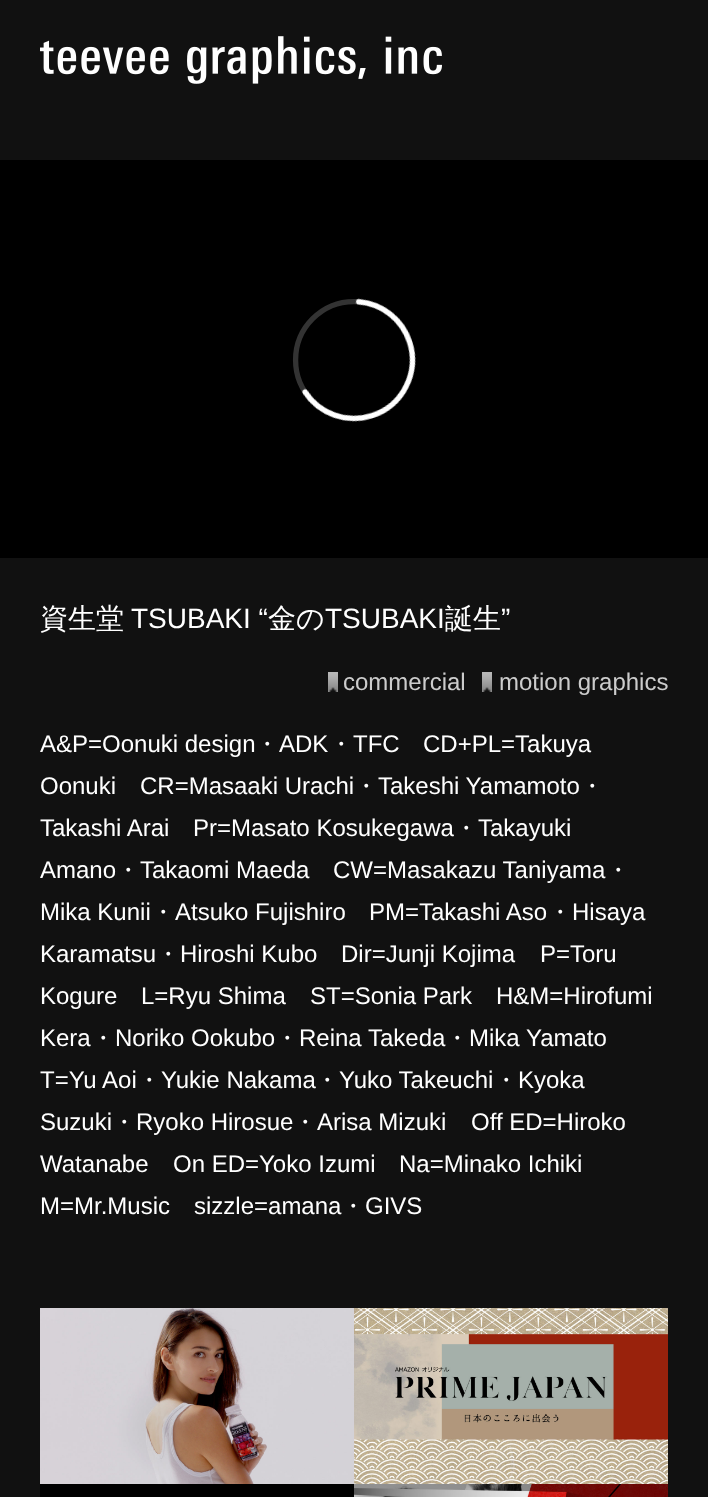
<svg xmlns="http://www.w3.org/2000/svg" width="708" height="1497">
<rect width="100%" height="100%" fill="#111"/>
<image x="40" y="36" width="402" height="48" href="media/1.png"/>
<image x="0" y="160" width="708" height="398" href="media/2.png"/>
<text x="40" y="628" style="font-family:WenQuanYi Zen Hei;font-size:28px;font-weight:500;fill:#fff">資生堂</text>
<text x="131" y="628" style="font-family:Liberation Sans;font-size:28px;fill:#fff">TSUBAKI “</text>
<text x="268" y="628" style="font-family:WenQuanYi Zen Hei;font-size:28px;font-weight:500;fill:#fff">金の</text>
<text x="325" y="628" style="font-family:Liberation Sans;font-size:28px;fill:#fff">TSUBAKI</text>
<text x="445" y="628" style="font-family:WenQuanYi Zen Hei;font-size:28px;font-weight:500;fill:#fff">誕生</text>
<text x="501" y="628" style="font-family:Liberation Sans;font-size:28px;fill:#fff">”</text>
<image x="328" y="672" width="10" height="20" href="media/3.png"/>
<text x="343" y="690" style="font-family:Liberation Sans;font-size:24px;fill:#ccc">commercial</text>
<image x="482" y="672" width="10" height="20" href="media/3.png"/>
<text x="499" y="690" style="font-family:Liberation Sans;font-size:24px;fill:#ccc">motion graphics</text>
<text x="40" y="752" style="font-family:Liberation Sans;font-size:24px;fill:#fff">A&amp;P=Oonuki design</text>
<text x="255" y="752" style="font-family:WenQuanYi Zen Hei;font-size:24px;font-weight:500;fill:#fff">・</text>
<text x="279" y="752" style="font-family:Liberation Sans;font-size:24px;fill:#fff">ADK</text>
<text x="329" y="752" style="font-family:WenQuanYi Zen Hei;font-size:24px;font-weight:500;fill:#fff">・</text>
<text x="353" y="752" style="font-family:Liberation Sans;font-size:24px;fill:#fff">TFC</text>
<text x="423" y="752" style="font-family:Liberation Sans;font-size:24px;fill:#fff">CD+PL=Takuya</text>
<text x="40" y="794" style="font-family:Liberation Sans;font-size:24px;fill:#fff">Oonuki</text>
<text x="140" y="794" style="font-family:Liberation Sans;font-size:24px;fill:#fff">CR=Masaaki Urachi</text>
<text x="354" y="794" style="font-family:WenQuanYi Zen Hei;font-size:24px;font-weight:500;fill:#fff">・</text>
<text x="378" y="794" style="font-family:Liberation Sans;font-size:24px;fill:#fff">Takeshi Yamamoto</text>
<text x="580" y="794" style="font-family:WenQuanYi Zen Hei;font-size:24px;font-weight:500;fill:#fff">・</text>
<text x="40" y="836" style="font-family:Liberation Sans;font-size:24px;fill:#fff">Takashi Arai</text>
<text x="193" y="836" style="font-family:Liberation Sans;font-size:24px;fill:#fff">Pr=Masato Kosukegawa</text>
<text x="454" y="836" style="font-family:WenQuanYi Zen Hei;font-size:24px;font-weight:500;fill:#fff">・</text>
<text x="478" y="836" style="font-family:Liberation Sans;font-size:24px;fill:#fff">Takayuki</text>
<text x="40" y="878" style="font-family:Liberation Sans;font-size:24px;fill:#fff">Amano</text>
<text x="116" y="878" style="font-family:WenQuanYi Zen Hei;font-size:24px;font-weight:500;fill:#fff">・</text>
<text x="140" y="878" style="font-family:Liberation Sans;font-size:24px;fill:#fff">Takaomi Maeda</text>
<text x="333" y="878" style="font-family:Liberation Sans;font-size:24px;fill:#fff">CW=Masakazu Taniyama</text>
<text x="606" y="878" style="font-family:WenQuanYi Zen Hei;font-size:24px;font-weight:500;fill:#fff">・</text>
<text x="40" y="920" style="font-family:Liberation Sans;font-size:24px;fill:#fff">Mika Kunii</text>
<text x="151" y="920" style="font-family:WenQuanYi Zen Hei;font-size:24px;font-weight:500;fill:#fff">・</text>
<text x="175" y="920" style="font-family:Liberation Sans;font-size:24px;fill:#fff">Atsuko Fujishiro</text>
<text x="369" y="920" style="font-family:Liberation Sans;font-size:24px;fill:#fff">PM=Takashi Aso</text>
<text x="548" y="920" style="font-family:WenQuanYi Zen Hei;font-size:24px;font-weight:500;fill:#fff">・</text>
<text x="572" y="920" style="font-family:Liberation Sans;font-size:24px;fill:#fff">Hisaya</text>
<text x="40" y="962" style="font-family:Liberation Sans;font-size:24px;fill:#fff">Karamatsu</text>
<text x="156" y="962" style="font-family:WenQuanYi Zen Hei;font-size:24px;font-weight:500;fill:#fff">・</text>
<text x="180" y="962" style="font-family:Liberation Sans;font-size:24px;fill:#fff">Hiroshi Kubo</text>
<text x="341" y="962" style="font-family:Liberation Sans;font-size:24px;fill:#fff">Dir=Junji Kojima</text>
<text x="540" y="962" style="font-family:Liberation Sans;font-size:24px;fill:#fff">P=Toru</text>
<text x="40" y="1004" style="font-family:Liberation Sans;font-size:24px;fill:#fff">Kogure</text>
<text x="141" y="1004" style="font-family:Liberation Sans;font-size:24px;fill:#fff">L=Ryu Shima</text>
<text x="310" y="1004" style="font-family:Liberation Sans;font-size:24px;fill:#fff">ST=Sonia Park</text>
<text x="496" y="1004" style="font-family:Liberation Sans;font-size:24px;fill:#fff">H&amp;M=Hirofumi</text>
<text x="40" y="1046" style="font-family:Liberation Sans;font-size:24px;fill:#fff">Kera</text>
<text x="91" y="1046" style="font-family:WenQuanYi Zen Hei;font-size:24px;font-weight:500;fill:#fff">・</text>
<text x="115" y="1046" style="font-family:Liberation Sans;font-size:24px;fill:#fff">Noriko Ookubo</text>
<text x="275" y="1046" style="font-family:WenQuanYi Zen Hei;font-size:24px;font-weight:500;fill:#fff">・</text>
<text x="299" y="1046" style="font-family:Liberation Sans;font-size:24px;fill:#fff">Reina Takeda</text>
<text x="445" y="1046" style="font-family:WenQuanYi Zen Hei;font-size:24px;font-weight:500;fill:#fff">・</text>
<text x="469" y="1046" style="font-family:Liberation Sans;font-size:24px;fill:#fff">Mika Yamato</text>
<text x="40" y="1088" style="font-family:Liberation Sans;font-size:24px;fill:#fff">T=Yu Aoi</text>
<text x="137" y="1088" style="font-family:WenQuanYi Zen Hei;font-size:24px;font-weight:500;fill:#fff">・</text>
<text x="161" y="1088" style="font-family:Liberation Sans;font-size:24px;fill:#fff">Yukie Nakama</text>
<text x="315" y="1088" style="font-family:WenQuanYi Zen Hei;font-size:24px;font-weight:500;fill:#fff">・</text>
<text x="339" y="1088" style="font-family:Liberation Sans;font-size:24px;fill:#fff">Yuko Takeuchi</text>
<text x="494" y="1088" style="font-family:WenQuanYi Zen Hei;font-size:24px;font-weight:500;fill:#fff">・</text>
<text x="518" y="1088" style="font-family:Liberation Sans;font-size:24px;fill:#fff">Kyoka</text>
<text x="40" y="1130" style="font-family:Liberation Sans;font-size:24px;fill:#fff">Suzuki</text>
<text x="112" y="1130" style="font-family:WenQuanYi Zen Hei;font-size:24px;font-weight:500;fill:#fff">・</text>
<text x="136" y="1130" style="font-family:Liberation Sans;font-size:24px;fill:#fff">Ryoko Hirosue</text>
<text x="293" y="1130" style="font-family:WenQuanYi Zen Hei;font-size:24px;font-weight:500;fill:#fff">・</text>
<text x="317" y="1130" style="font-family:Liberation Sans;font-size:24px;fill:#fff">Arisa Mizuki</text>
<text x="471" y="1130" style="font-family:Liberation Sans;font-size:24px;fill:#fff">Off ED=Hiroko</text>
<text x="40" y="1172" style="font-family:Liberation Sans;font-size:24px;fill:#fff">Watanabe</text>
<text x="173" y="1172" style="font-family:Liberation Sans;font-size:24px;fill:#fff">On ED=Yoko Izumi</text>
<text x="399" y="1172" style="font-family:Liberation Sans;font-size:24px;fill:#fff">Na=Minako Ichiki</text>
<text x="40" y="1214" style="font-family:Liberation Sans;font-size:24px;fill:#fff">M=Mr.Music</text>
<text x="194" y="1214" style="font-family:Liberation Sans;font-size:24px;fill:#fff">sizzle=amana</text>
<text x="341" y="1214" style="font-family:WenQuanYi Zen Hei;font-size:24px;font-weight:500;fill:#fff">・</text>
<text x="365" y="1214" style="font-family:Liberation Sans;font-size:24px;fill:#fff">GIVS</text>
<image x="40" y="1308" width="314" height="176" href="media/4.png"/>
<image x="354" y="1308" width="314" height="176" href="media/5.png"/>
<rect x="40" y="1484" width="314" height="13" fill="#000"/>
<image x="354" y="1484" width="314" height="13" href="media/6.png"/>
</svg>
